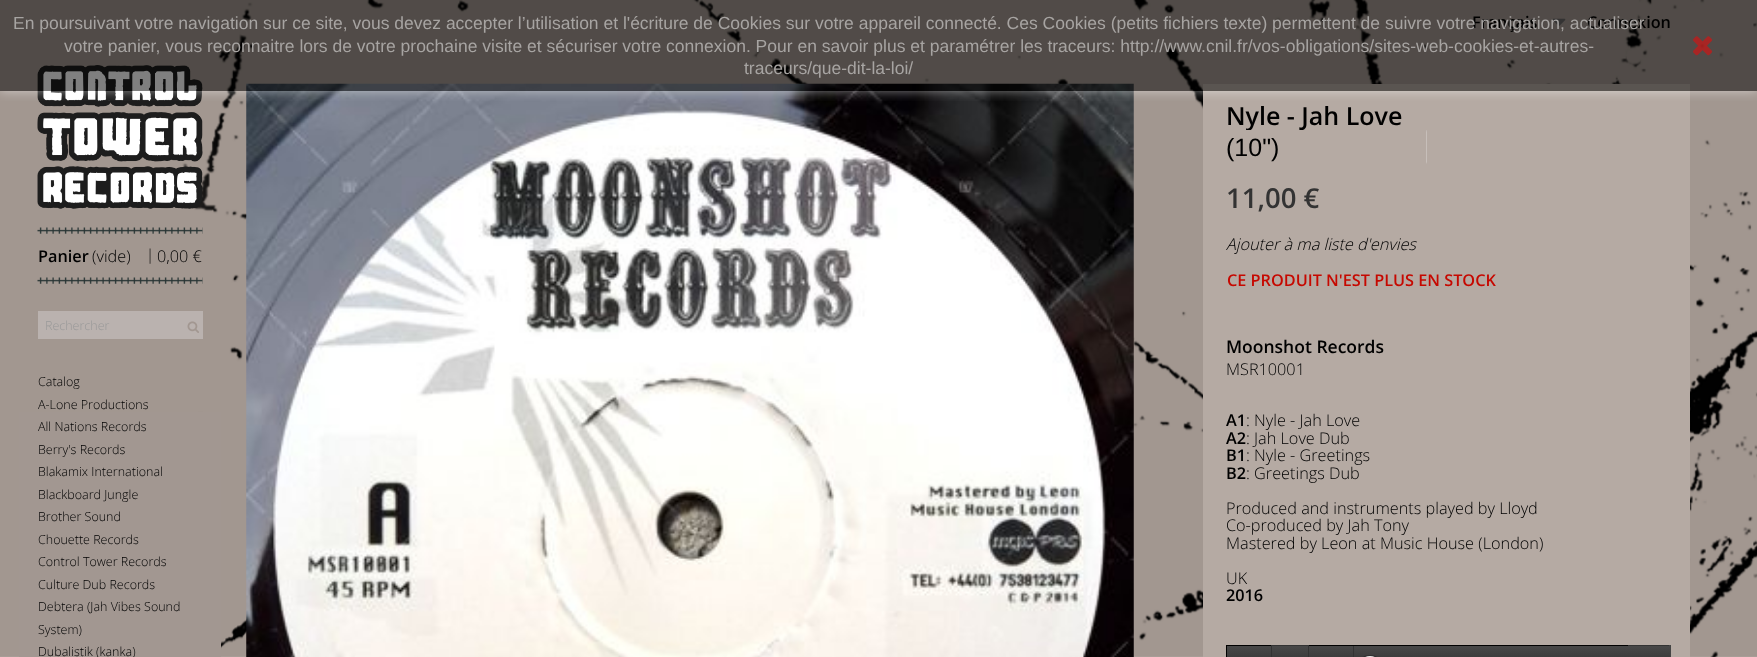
<svg xmlns="http://www.w3.org/2000/svg" width="1757" height="657">
<defs>
<linearGradient id="g1" gradientUnits="userSpaceOnUse" x1="1448" y1="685" x2="1448" y2="645"><stop offset="0" stop-color="#202020"/><stop offset="1" stop-color="#494949"/></linearGradient>
<clipPath id="clip1"><rect x="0" y="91" width="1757" height="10"/></clipPath>
</defs>
<rect width="100%" height="100%" fill="#fff"/>
<image x="0" y="0" width="1757" height="657" href="media/1.png"/>
<text x="1472" y="28" style="font-family:Open Sans;font-size:16.25px;font-weight:600;fill:#000">Français</text>
<image x="1552" y="18" width="14" height="8" href="media/2.png"/>
<text x="1587" y="28" style="font-family:Open Sans;font-size:16.25px;font-weight:600;fill:#000">Connexion</text>
<image x="37" y="65" width="166" height="144" href="media/3.png"/>
<image x="37" y="227" width="166" height="57" href="media/4.png"/>
<text x="38" y="262" style="font-family:Open Sans;font-size:16.25px;font-weight:600;fill:#000">Panier</text>
<text x="92" y="262" style="font-family:Open Sans;font-size:16.25px;font-weight:300;fill:#000">(vide)</text>
<text x="146" y="260" style="font-family:Open Sans;font-size:15px;font-weight:300;fill:#000">|</text>
<text x="157" y="262" style="font-family:Open Sans;font-size:16.25px;font-weight:300;fill:#000">0,00 €</text>
<rect x="38" y="311" width="165" height="28" fill="#bab2af"/>
<text x="45" y="330" style="font-family:Open Sans;font-size:12.5px;font-weight:300;fill:#999">Rechercher</text>
<image x="187" y="321" width="12" height="12" href="media/5.png"/>
<rect x="19" y="412" width="202" height="245" fill="#a29791"/>
<text x="38" y="386" style="font-family:Open Sans;font-size:12.5px;font-weight:300;fill:#000">Catalog</text>
<text x="38" y="409" style="font-family:Open Sans;font-size:12.5px;font-weight:300;fill:#000">A-Lone Productions</text>
<text x="38" y="431" style="font-family:Open Sans;font-size:12.5px;font-weight:300;fill:#000">All Nations Records</text>
<text x="38" y="454" style="font-family:Open Sans;font-size:12.5px;font-weight:300;fill:#000">Berry's Records</text>
<text x="38" y="476" style="font-family:Open Sans;font-size:12.5px;font-weight:300;fill:#000">Blakamix International</text>
<text x="38" y="499" style="font-family:Open Sans;font-size:12.5px;font-weight:300;fill:#000">Blackboard Jungle</text>
<text x="38" y="521" style="font-family:Open Sans;font-size:12.5px;font-weight:300;fill:#000">Brother Sound</text>
<text x="38" y="544" style="font-family:Open Sans;font-size:12.5px;font-weight:300;fill:#000">Chouette Records</text>
<text x="38" y="566" style="font-family:Open Sans;font-size:12.5px;font-weight:300;fill:#000">Control Tower Records</text>
<text x="38" y="589" style="font-family:Open Sans;font-size:12.5px;font-weight:300;fill:#000">Culture Dub Records</text>
<text x="38" y="611" style="font-family:Open Sans;font-size:12.5px;font-weight:300;fill:#000">Debtera (Jah Vibes Sound</text>
<text x="38" y="634" style="font-family:Open Sans;font-size:12.5px;font-weight:300;fill:#000">System)</text>
<text x="38" y="656" style="font-family:Open Sans;font-size:12.5px;font-weight:300;fill:#000">Dubalistik (kanka)</text>
<image x="246" y="83" width="888" height="574" href="media/6.png"/>
<rect x="1203" y="84" width="487" height="573" fill="#b5aaa3"/>
<text x="1226" y="125" style="font-family:Open Sans;font-size:25px;font-weight:600;fill:#000">Nyle - Jah Love</text>
<rect x="1246" y="130" width="5" height="1" fill="#b5aaa3"/>
<text x="1226" y="156" style="font-family:Liberation Sans;font-size:25px;fill:#000">(10")</text>
<image x="1426" y="130" width="1" height="34" href="media/7.png"/>
<text x="1226" y="208" style="font-family:Open Sans;font-size:27.5px;font-weight:600;fill:#333">11,00 €</text>
<text x="1226" y="250" style="font-family:Open Sans;font-size:16.25px;font-weight:300;font-style:italic;fill:#000">Ajouter à ma liste d'envies</text>
<text x="1227" y="286" style="font-family:Open Sans;font-size:16.25px;font-weight:600;fill:#c60800">CE PRODUIT N'EST PLUS EN STOCK</text>
<text x="1226" y="353" style="font-family:Open Sans;font-size:17.5px;font-weight:600;fill:#000">Moonshot Records</text>
<text x="1226" y="375" style="font-family:Open Sans;font-size:16.25px;font-weight:300;fill:#000">MSR10001</text>
<text x="1226" y="426" style="font-family:Open Sans;font-size:16.25px;font-weight:600;fill:#000">A1</text>
<text x="1246" y="426" style="font-family:Open Sans;font-size:16.25px;font-weight:300;fill:#000">: Nyle - Jah Love</text>
<text x="1226" y="444" style="font-family:Open Sans;font-size:16.25px;font-weight:600;fill:#000">A2</text>
<text x="1246" y="444" style="font-family:Open Sans;font-size:16.25px;font-weight:300;fill:#000">: Jah Love Dub</text>
<text x="1226" y="461" style="font-family:Open Sans;font-size:16.25px;font-weight:600;fill:#000">B1</text>
<text x="1246" y="461" style="font-family:Open Sans;font-size:16.25px;font-weight:300;fill:#000">: Nyle - Greetings</text>
<text x="1226" y="479" style="font-family:Open Sans;font-size:16.25px;font-weight:600;fill:#000">B2</text>
<text x="1246" y="479" style="font-family:Open Sans;font-size:16.25px;font-weight:300;fill:#000">: Greetings Dub</text>
<text x="1226" y="514" style="font-family:Open Sans;font-size:16.25px;font-weight:300;fill:#000">Produced and instruments played by Lloyd</text>
<text x="1226" y="531" style="font-family:Open Sans;font-size:16.25px;font-weight:300;fill:#000">Co-produced by Jah Tony</text>
<text x="1226" y="549" style="font-family:Open Sans;font-size:16.25px;font-weight:300;fill:#000">Mastered by Leon at Music House (London)</text>
<text x="1226" y="584" style="font-family:Open Sans;font-size:16.25px;font-weight:300;fill:#000">UK</text>
<text x="1226" y="601" style="font-family:Open Sans;font-size:16.25px;font-weight:600;fill:#000">2016</text>
<rect x="1227" y="645" width="443" height="12" fill="url(#g1)"/>
<rect x="1670" y="645" width="1" height="12" fill="#444"/>
<rect x="1226" y="645" width="45" height="1" fill="#000"/>
<rect x="1226" y="645" width="1" height="12" fill="#000"/>
<rect x="1271" y="646" width="1" height="11" fill="#333"/>
<rect x="1271" y="645" width="38" height="1" fill="#333"/>
<rect x="1308" y="645" width="1" height="12" fill="#333"/>
<rect x="1309" y="645" width="319" height="1" fill="#000"/>
<rect x="1353" y="646" width="1" height="11" fill="#333"/>
<rect x="1628" y="645" width="41" height="1" fill="#333"/>
<rect x="1359" y="655" width="22" height="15" rx="11" fill="#00000040" filter="blur(0.5px)"/>
<rect x="1363" y="659" width="14" height="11" rx="7" fill="none" stroke="#eaeaea" stroke-width="6"/>
<g clip-path="url(#clip1)">
<rect width="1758" height="91" fill="#ffffff80" filter="blur(6px)"/>
</g>
<rect width="1757" height="91" fill="#00000080"/>
<text x="13" y="29" style="font-family:Liberation Sans;font-size:17.5px;fill:#a7a4a2">En poursuivant votre navigation sur ce site, vous devez accepter l’utilisation et l'écriture de Cookies sur votre appareil connecté. Ces Cookies (petits fichiers texte) permettent de suivre votre navigation, actualiser</text>
<text x="64" y="52" style="font-family:Liberation Sans;font-size:17.5px;fill:#a7a4a2">votre panier, vous reconnaitre lors de votre prochaine visite et sécuriser votre connexion. Pour en savoir plus et paramétrer les traceurs: http://www.cnil.fr/vos-obligations/sites-web-cookies-et-autres-</text>
<text x="744" y="74" style="font-family:Liberation Sans;font-size:17.5px;fill:#a7a4a2">traceurs/que-dit-la-loi/</text>
<image x="1693" y="36" width="19" height="20" href="media/8.png"/>
</svg>
